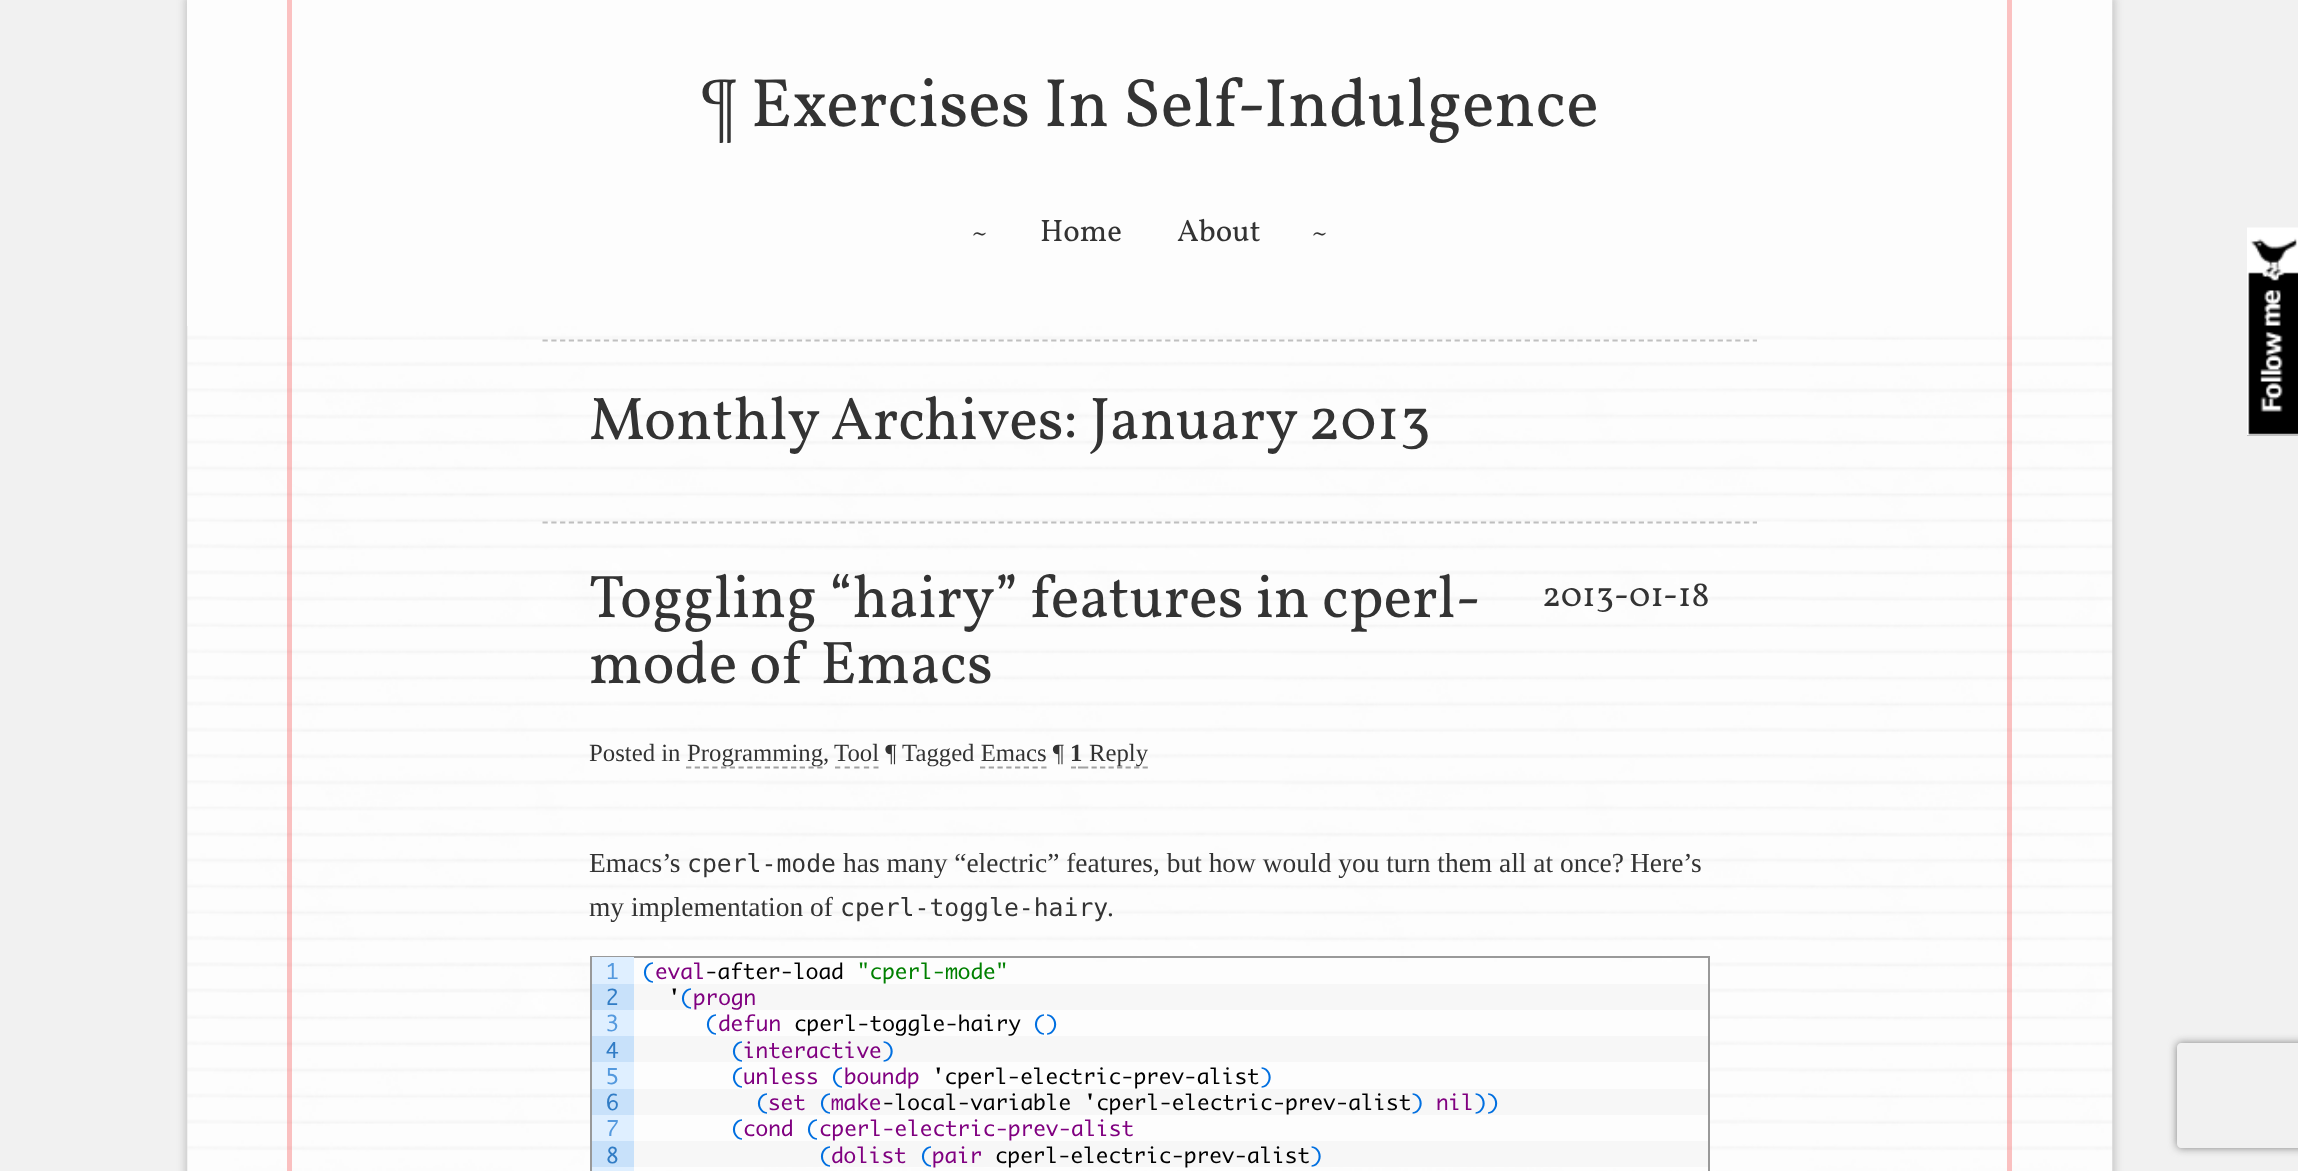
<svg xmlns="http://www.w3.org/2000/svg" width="2298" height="1171">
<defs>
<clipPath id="clip1"><path d="M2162 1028h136v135h-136zm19 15h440c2 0 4 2 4 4v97c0 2-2 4-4 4h-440c-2 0-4-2-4-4v-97c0-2 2-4 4-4z" clip-rule="evenodd"/></clipPath>
</defs>
<rect width="100%" height="100%" fill="#f1f1f1"/>
<rect x="184" y="-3" width="1932" height="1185" fill="#ccc" filter="blur(3.5px)"/>
<image x="187" y="0" width="1926" height="1171" href="media/1.png"/>
<rect x="187" width="1925" height="326" fill="#fdfdfd"/>
<rect x="2007" width="5" height="326" fill="#fbc1c1"/>
<rect x="287" width="5" height="326" fill="#fbc1c1"/>
<text x="700" y="126" style="font-family:Vollkorn;font-size:68.6px;fill:#333">¶ Exercises In Self-Indulgence</text>
<text x="972" y="241" style="font-family:Vollkorn;font-size:27.45px;fill:#333">~</text>
<text x="1040" y="241" style="font-family:Vollkorn;font-size:31px;fill:#333">Home</text>
<text x="1177" y="241" style="font-family:Vollkorn;font-size:31px;fill:#333">About</text>
<text x="1312" y="241" style="font-family:Vollkorn;font-size:27.45px;fill:#333">~</text>
<rect x="2007" y="326" width="5" height="845" fill="#f40d0d40"/>
<rect x="287" y="326" width="5" height="845" fill="#f40d0d40"/>
<path d="M542.5 340.5h1214.5" fill="none" stroke="#c0c0c0" stroke-width="1.8" stroke-dasharray="5.25 3.52"/>
<text x="589" y="439" style="font-family:Vollkorn;font-size:60.4px;fill:#333">Monthly Archives: January 2013</text>
<path d="M542.5 522.5h1214.5" fill="none" stroke="#64646466" stroke-width="1.8" stroke-dasharray="5.25 3.52"/>
<text x="589" y="617" style="font-family:Vollkorn;font-size:60.4px;fill:#333">Toggling “hairy” features in cperl-</text>
<text x="589" y="683" style="font-family:Vollkorn;font-size:60.4px;fill:#333">mode of Emacs</text>
<text x="1542" y="606" style="font-family:Vollkorn;font-size:35.5px;fill:#333">2013-01-18</text>
<text x="589" y="761" style="font-family:Liberation Serif;font-size:24.75px;fill:#333">Posted in</text>
<path d="M686 767.5h136.5" fill="none" stroke="#a1a1a1" stroke-width="1.8" stroke-dasharray="5.25 3.5"/>
<text x="687" y="761" style="font-family:Liberation Serif;font-size:24.75px;fill:#333">Programming,</text>
<text x="834" y="761" style="font-family:Liberation Serif;font-size:24.75px;fill:#333">Tool ¶</text>
<path d="M835 767.5h43.5" fill="none" stroke="#a1a1a1" stroke-width="1.8" stroke-dasharray="5.25 4.38"/>
<text x="902" y="761" style="font-family:Liberation Serif;font-size:24.75px;fill:#333">Tagged Emacs ¶</text>
<path d="M980 767.5h66.5" fill="none" stroke="#a1a1a1" stroke-width="1.8" stroke-dasharray="5.25 3.5"/>
<text x="1070" y="761" style="font-family:Liberation Serif;font-size:24.75px;font-weight:bold;fill:#333">1</text>
<path d="M1071 767.5h5m2 0h5" fill="none" stroke="#a1a1a1" stroke-width="1.8"/>
<path d="M1083 767.5h65" fill="none" stroke="#a1a1a1" stroke-width="1.8" stroke-dasharray="5.25 3.26"/>
<text x="1089" y="761" style="font-family:Liberation Serif;font-size:24.75px;fill:#333">Reply</text>
<text x="589" y="872" style="font-family:Liberation Serif;font-size:27.45px;fill:#333">Emacs’s</text>
<text x="687" y="872" style="font-family:DejaVu Sans Mono;font-size:24.75px;fill:#333">cperl-mode</text>
<text x="843" y="872" style="font-family:Liberation Serif;font-size:27.45px;fill:#333">has many “electric” features, but how would you turn them all at once?</text>
<text x="1630" y="872" style="font-family:Liberation Serif;font-size:27.45px;fill:#333">Here’s</text>
<text x="589" y="916" style="font-family:Liberation Serif;font-size:27.45px;fill:#333">my implementation of</text>
<text x="840" y="916" style="font-family:DejaVu Sans Mono;font-size:24.75px;fill:#333">cperl-toggle-hairy</text>
<text x="1107" y="916" style="font-family:Liberation Serif;font-size:27.45px;fill:#333">.</text>
<rect x="634" y="962" width="1074" height="188" fill="#fdfdfd"/>
<rect x="591" y="957" width="1118" height="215" fill="none" stroke="#999" stroke-width="2"/>
<rect x="592" y="957" width="42" height="214" fill="#dfefff"/>
<text x="606" y="979" style="font-family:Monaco;font-size:21px;fill:#5499de">1</text>
<rect x="592" y="984" width="42" height="26" fill="#c8e1fa"/>
<text x="606" y="1005" style="font-family:Monaco;font-size:21px;fill:#317cc5">2</text>
<text x="606" y="1031" style="font-family:Monaco;font-size:21px;fill:#5499de">3</text>
<rect x="592" y="1036" width="42" height="26" fill="#c8e1fa"/>
<text x="606" y="1058" style="font-family:Monaco;font-size:21px;fill:#317cc5">4</text>
<text x="606" y="1084" style="font-family:Monaco;font-size:21px;fill:#5499de">5</text>
<rect x="592" y="1089" width="42" height="26" fill="#c8e1fa"/>
<text x="606" y="1110" style="font-family:Monaco;font-size:21px;fill:#317cc5">6</text>
<text x="606" y="1136" style="font-family:Monaco;font-size:21px;fill:#5499de">7</text>
<rect x="592" y="1141" width="42" height="26" fill="#c8e1fa"/>
<text x="606" y="1163" style="font-family:Monaco;font-size:21px;fill:#317cc5">8</text>
<text x="642" y="979" style="font-family:Monaco;font-size:21px;fill:#006fe0">(</text>
<text x="655" y="979" style="font-family:Monaco;font-size:21px;fill:#800080">eval</text>
<text x="705" y="979" style="font-family:Monaco;font-size:21px;fill:#000">-after-load</text>
<text x="857" y="979" style="font-family:Monaco;font-size:21px;fill:#008000">"cperl-mode"</text>
<rect x="634" y="984" width="1074" height="26" fill="#f7f7f7"/>
<text x="668" y="1005" style="font-family:Monaco;font-size:21px;fill:#000">'</text>
<text x="680" y="1005" style="font-family:Monaco;font-size:21px;fill:#006fe0">(</text>
<text x="693" y="1005" style="font-family:Monaco;font-size:21px;fill:#800080">progn</text>
<text x="705" y="1031" style="font-family:Monaco;font-size:21px;fill:#006fe0">(</text>
<text x="718" y="1031" style="font-family:Monaco;font-size:21px;fill:#800080">defun</text>
<text x="794" y="1031" style="font-family:Monaco;font-size:21px;fill:#000">cperl-toggle-hairy</text>
<text x="1033" y="1031" style="font-family:Monaco;font-size:21px;fill:#006fe0">()</text>
<rect x="634" y="1036" width="1074" height="26" fill="#f7f7f7"/>
<text x="731" y="1058" style="font-family:Monaco;font-size:21px;fill:#006fe0">(</text>
<text x="743" y="1058" style="font-family:Monaco;font-size:21px;fill:#800080">interactive</text>
<text x="882" y="1058" style="font-family:Monaco;font-size:21px;fill:#006fe0">)</text>
<text x="731" y="1084" style="font-family:Monaco;font-size:21px;fill:#006fe0">(</text>
<text x="743" y="1084" style="font-family:Monaco;font-size:21px;fill:#800080">unless</text>
<text x="831" y="1084" style="font-family:Monaco;font-size:21px;fill:#006fe0">(</text>
<text x="844" y="1084" style="font-family:Monaco;font-size:21px;fill:#800080">boundp</text>
<text x="932" y="1084" style="font-family:Monaco;font-size:21px;fill:#000">'cperl-electric-prev-alist</text>
<text x="1260" y="1084" style="font-family:Monaco;font-size:21px;fill:#006fe0">)</text>
<rect x="634" y="1089" width="1074" height="26" fill="#f7f7f7"/>
<text x="756" y="1110" style="font-family:Monaco;font-size:21px;fill:#006fe0">(</text>
<text x="768" y="1110" style="font-family:Monaco;font-size:21px;fill:#800080">set</text>
<text x="819" y="1110" style="font-family:Monaco;font-size:21px;fill:#006fe0">(</text>
<text x="831" y="1110" style="font-family:Monaco;font-size:21px;fill:#800080">make</text>
<text x="882" y="1110" style="font-family:Monaco;font-size:21px;fill:#000">-local-variable 'cperl-electric-prev-alist</text>
<text x="1411" y="1110" style="font-family:Monaco;font-size:21px;fill:#006fe0">)</text>
<text x="1436" y="1110" style="font-family:Monaco;font-size:21px;fill:#800080">nil</text>
<text x="1474" y="1110" style="font-family:Monaco;font-size:21px;fill:#006fe0">))</text>
<text x="731" y="1136" style="font-family:Monaco;font-size:21px;fill:#006fe0">(</text>
<text x="743" y="1136" style="font-family:Monaco;font-size:21px;fill:#800080">cond</text>
<text x="806" y="1136" style="font-family:Monaco;font-size:21px;fill:#006fe0">(</text>
<text x="819" y="1136" style="font-family:Monaco;font-size:21px;fill:#800080">cperl-electric-prev-alist</text>
<rect x="634" y="1141" width="1074" height="26" fill="#f7f7f7"/>
<text x="819" y="1163" style="font-family:Monaco;font-size:21px;fill:#006fe0">(</text>
<text x="831" y="1163" style="font-family:Monaco;font-size:21px;fill:#800080">dolist</text>
<text x="920" y="1163" style="font-family:Monaco;font-size:21px;fill:#006fe0">(</text>
<text x="932" y="1163" style="font-family:Monaco;font-size:21px;fill:#800080">pair</text>
<text x="995" y="1163" style="font-family:Monaco;font-size:21px;fill:#000">cperl-electric-prev-alist</text>
<text x="1310" y="1163" style="font-family:Monaco;font-size:21px;fill:#006fe0">)</text>
<rect x="2247" y="237" width="51" height="199" fill="#000"/>
<image x="2247" y="227" width="51" height="209" href="media/2.png"/>
<g clip-path="url(#clip1)">
<rect x="2177" y="1043" width="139" height="105" rx="4" fill="#808080" filter="blur(4.5px)"/>
</g>
</svg>
